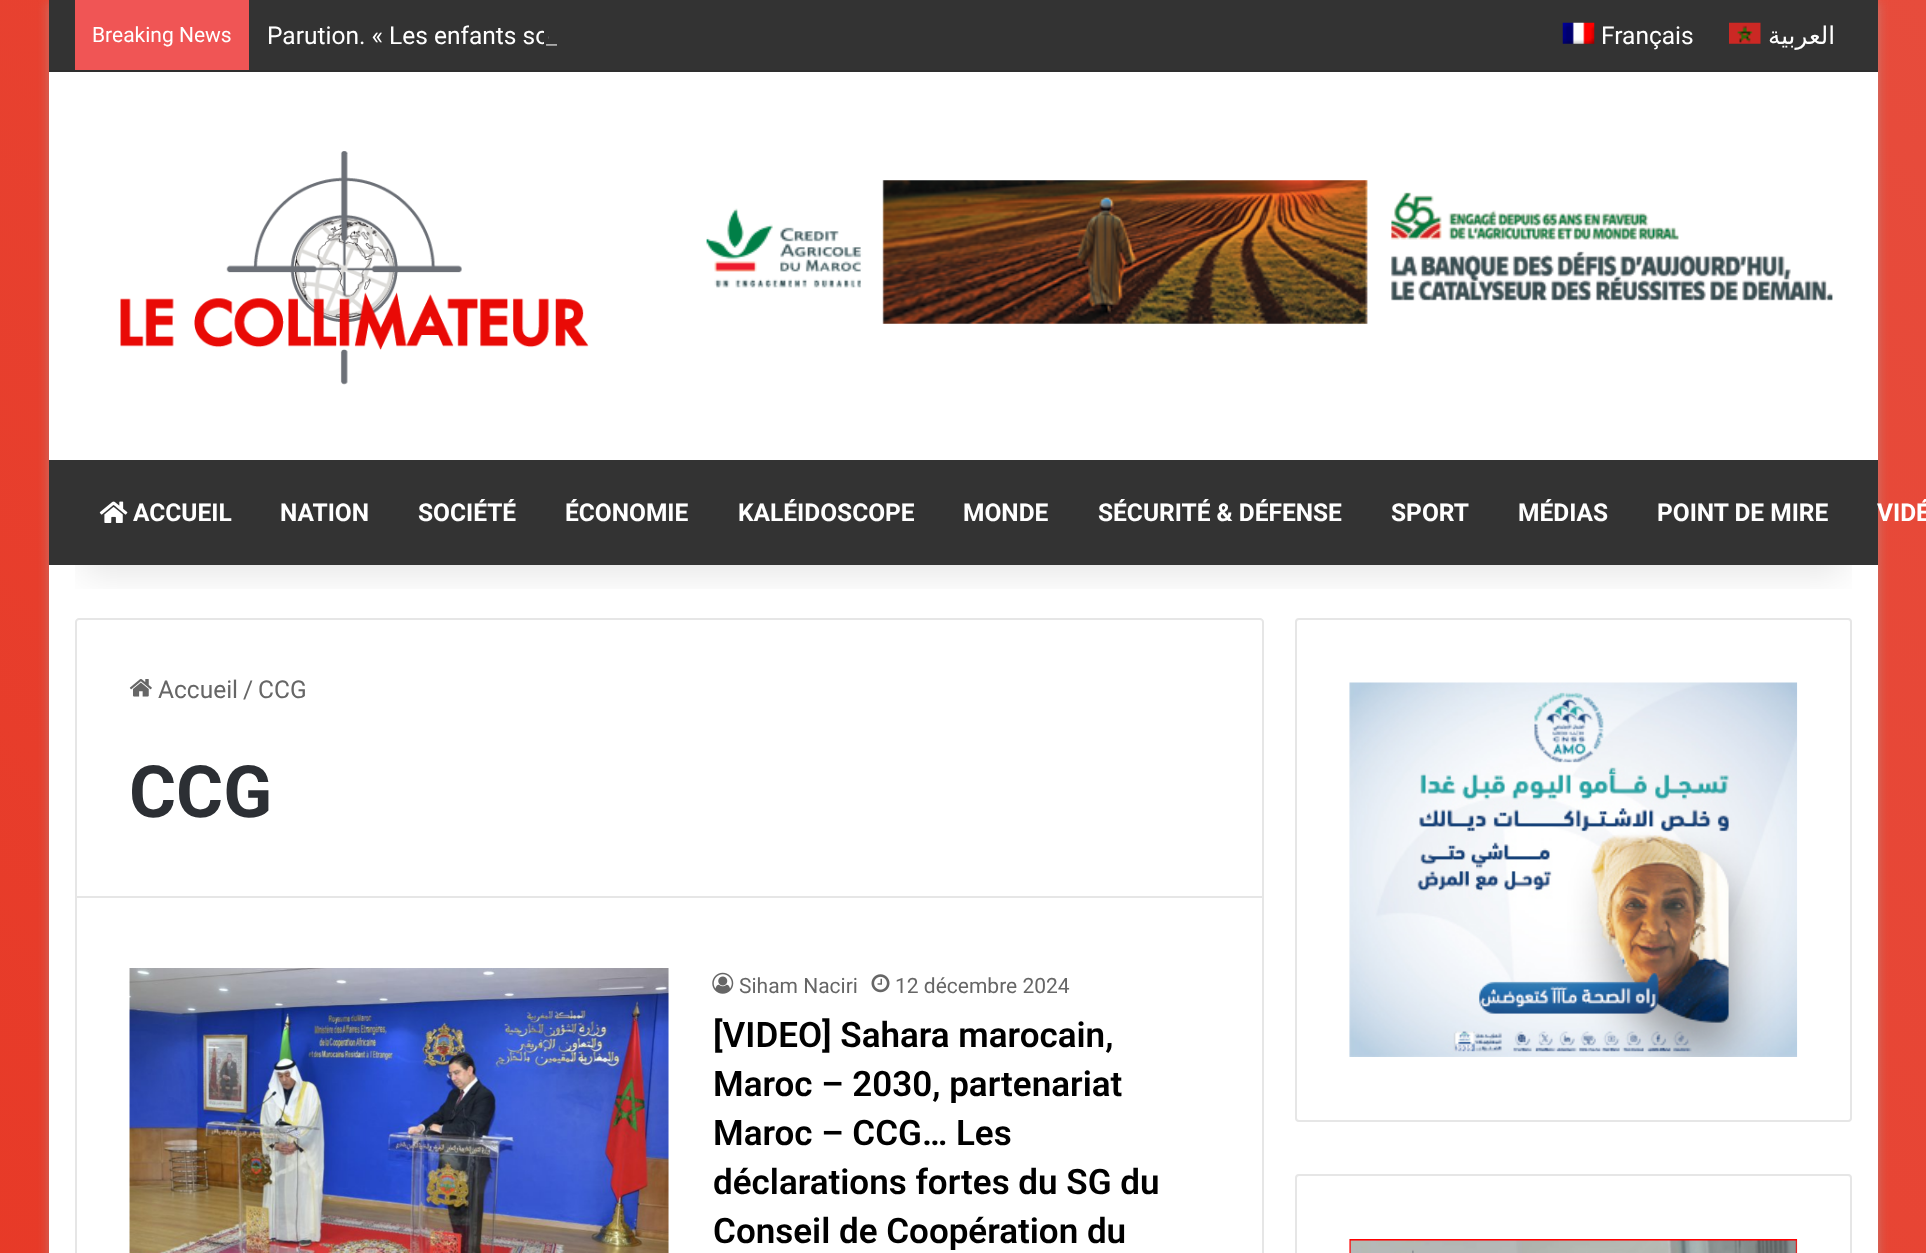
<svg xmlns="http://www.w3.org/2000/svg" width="1926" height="1253">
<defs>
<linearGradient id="g1" gradientUnits="userSpaceOnUse" x1="-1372" y1="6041" x2="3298" y2="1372"><stop offset="0" stop-color="#e81700"/><stop offset="1" stop-color="#e74c3c"/></linearGradient>
<clipPath id="clip1"><rect x="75" y="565" width="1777" height="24"/></clipPath>
</defs>
<rect width="100%" height="100%" fill="#fff"/>
<rect width="1926" height="1253" fill="url(#g1)"/>
<rect x="49" y="2" width="1829" height="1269" fill="#ababab80" filter="blur(6px)"/>
<rect x="49" y="72" width="1829" height="1181" fill="#fff"/>
<path d="M79 619h1181c1.5 0 3 1.5 3 3v275h-1187v-275c0-1.5 1.5-3 3-3z" fill="none" stroke="#e6e6e6" stroke-width="2"/>
<rect x="1296" y="619" width="555" height="502" rx="3" fill="none" stroke="#e6e6e6" stroke-width="2"/>
<g clip-path="url(#clip1)">
<rect x="84" y="79" width="1759" height="495" fill="#0000001a" filter="blur(17.5px)"/>
</g>
<rect x="49" width="1829" height="70" fill="#333"/>
<rect x="49" y="70" width="1829" height="2" fill="#2e2e2e"/>
<rect x="75" width="174" height="70" fill="#f05555"/>
<text x="92" y="42" style="font-family:Roboto;font-size:21px;fill:#fff">Breaking News</text>
<text x="267" y="44" style="font-family:Roboto;font-size:24.5px;fill:#fff">Parution. « Les enfants so</text>
<rect x="544" y="31" width="4" height="13" fill="#333"/>
<text x="546" y="44" style="font-family:Roboto;font-size:24.5px;fill:#aaa">_</text>
<image x="1562" y="22" width="33" height="22" href="media/1.png"/>
<text x="1601" y="44" style="font-family:Roboto;font-size:24.5px;fill:#fff">Français</text>
<image x="1729" y="22" width="32" height="22" href="media/2.png"/>
<text x="1835" y="44" style="font-family:DejaVu Sans;font-size:24.5px;direction:rtl;fill:#fff">العربية</text>
<image x="120" y="151" width="469" height="234" href="media/3.png"/>
<image x="706" y="180" width="1127" height="144" href="media/4.png"/>
<rect x="49" y="460" width="1829" height="105" fill="#333"/>
<image x="99" y="501" width="29" height="22" href="media/5.png"/>
<text x="133" y="521" style="font-family:Roboto;font-size:24.5px;font-weight:bold;fill:#fff">ACCUEIL</text>
<text x="280" y="521" style="font-family:Roboto;font-size:24.5px;font-weight:bold;fill:#fff">NATION</text>
<text x="418" y="521" style="font-family:Roboto;font-size:24.5px;font-weight:bold;fill:#fff">SOCIÉTÉ</text>
<text x="565" y="521" style="font-family:Roboto;font-size:24.5px;font-weight:bold;fill:#fff">ÉCONOMIE</text>
<text x="738" y="521" style="font-family:Roboto;font-size:24.5px;font-weight:bold;fill:#fff">KALÉIDOSCOPE</text>
<text x="963" y="521" style="font-family:Roboto;font-size:24.5px;font-weight:bold;fill:#fff">MONDE</text>
<text x="1098" y="521" style="font-family:Roboto;font-size:24.5px;font-weight:bold;fill:#fff">SÉCURITÉ &amp; DÉFENSE</text>
<text x="1391" y="521" style="font-family:Roboto;font-size:24.5px;font-weight:bold;fill:#fff">SPORT</text>
<text x="1518" y="521" style="font-family:Roboto;font-size:24.5px;font-weight:bold;fill:#fff">MÉDIAS</text>
<text x="1657" y="521" style="font-family:Roboto;font-size:24.5px;font-weight:bold;fill:#fff">POINT DE MIRE</text>
<text x="1877" y="521" style="font-family:Roboto;font-size:24.5px;font-weight:bold;fill:#fff">VIDÉ</text>
<image x="129" y="679" width="23" height="18" href="media/6.png"/>
<text x="158" y="698" style="font-family:Roboto;font-size:24.5px;fill:#666">Accueil</text>
<text x="243" y="698" style="font-family:Roboto;font-size:24.5px;fill:#666">/</text>
<text x="258" y="698" style="font-family:Roboto;font-size:24.5px;fill:#666">CCG</text>
<text x="129" y="817" style="font-family:Roboto;font-size:72px;font-weight:bold;fill:#2c2f34">CCG</text>
<rect x="1262" y="898" width="2" height="355" fill="#e6e6e6"/>
<rect x="75" y="898" width="2" height="355" fill="#e6e6e6"/>
<image x="129" y="968" width="540" height="285" href="media/7.png"/>
<image x="712" y="972" width="22" height="22" href="media/8.png"/>
<text x="739" y="993" style="font-family:Roboto;font-size:21px;fill:#666">Siham Naciri</text>
<image x="871" y="974" width="19" height="19" href="media/9.png"/>
<text x="895" y="993" style="font-family:Roboto;font-size:21px;fill:#666">12 décembre 2024</text>
<text x="713" y="1047" style="font-family:Roboto;font-size:35px;font-weight:600;fill:#000">[VIDEO] Sahara marocain,</text>
<text x="713" y="1096" style="font-family:Roboto;font-size:35px;font-weight:600;fill:#000">Maroc – 2030, partenariat</text>
<text x="713" y="1145" style="font-family:Roboto;font-size:35px;font-weight:600;fill:#000">Maroc – CCG… Les</text>
<text x="713" y="1194" style="font-family:Roboto;font-size:35px;font-weight:600;fill:#000">déclarations fortes du SG du</text>
<text x="713" y="1243" style="font-family:Roboto;font-size:35px;font-weight:600;fill:#000">Conseil de Coopération du</text>
<image x="1349" y="682" width="449" height="375" href="media/10.png"/>
<rect x="1296" y="1175" width="555" height="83" rx="3" fill="none" stroke="#e6e6e6" stroke-width="2"/>
<image x="1349" y="1239" width="449" height="14" href="media/11.png"/>
</svg>
